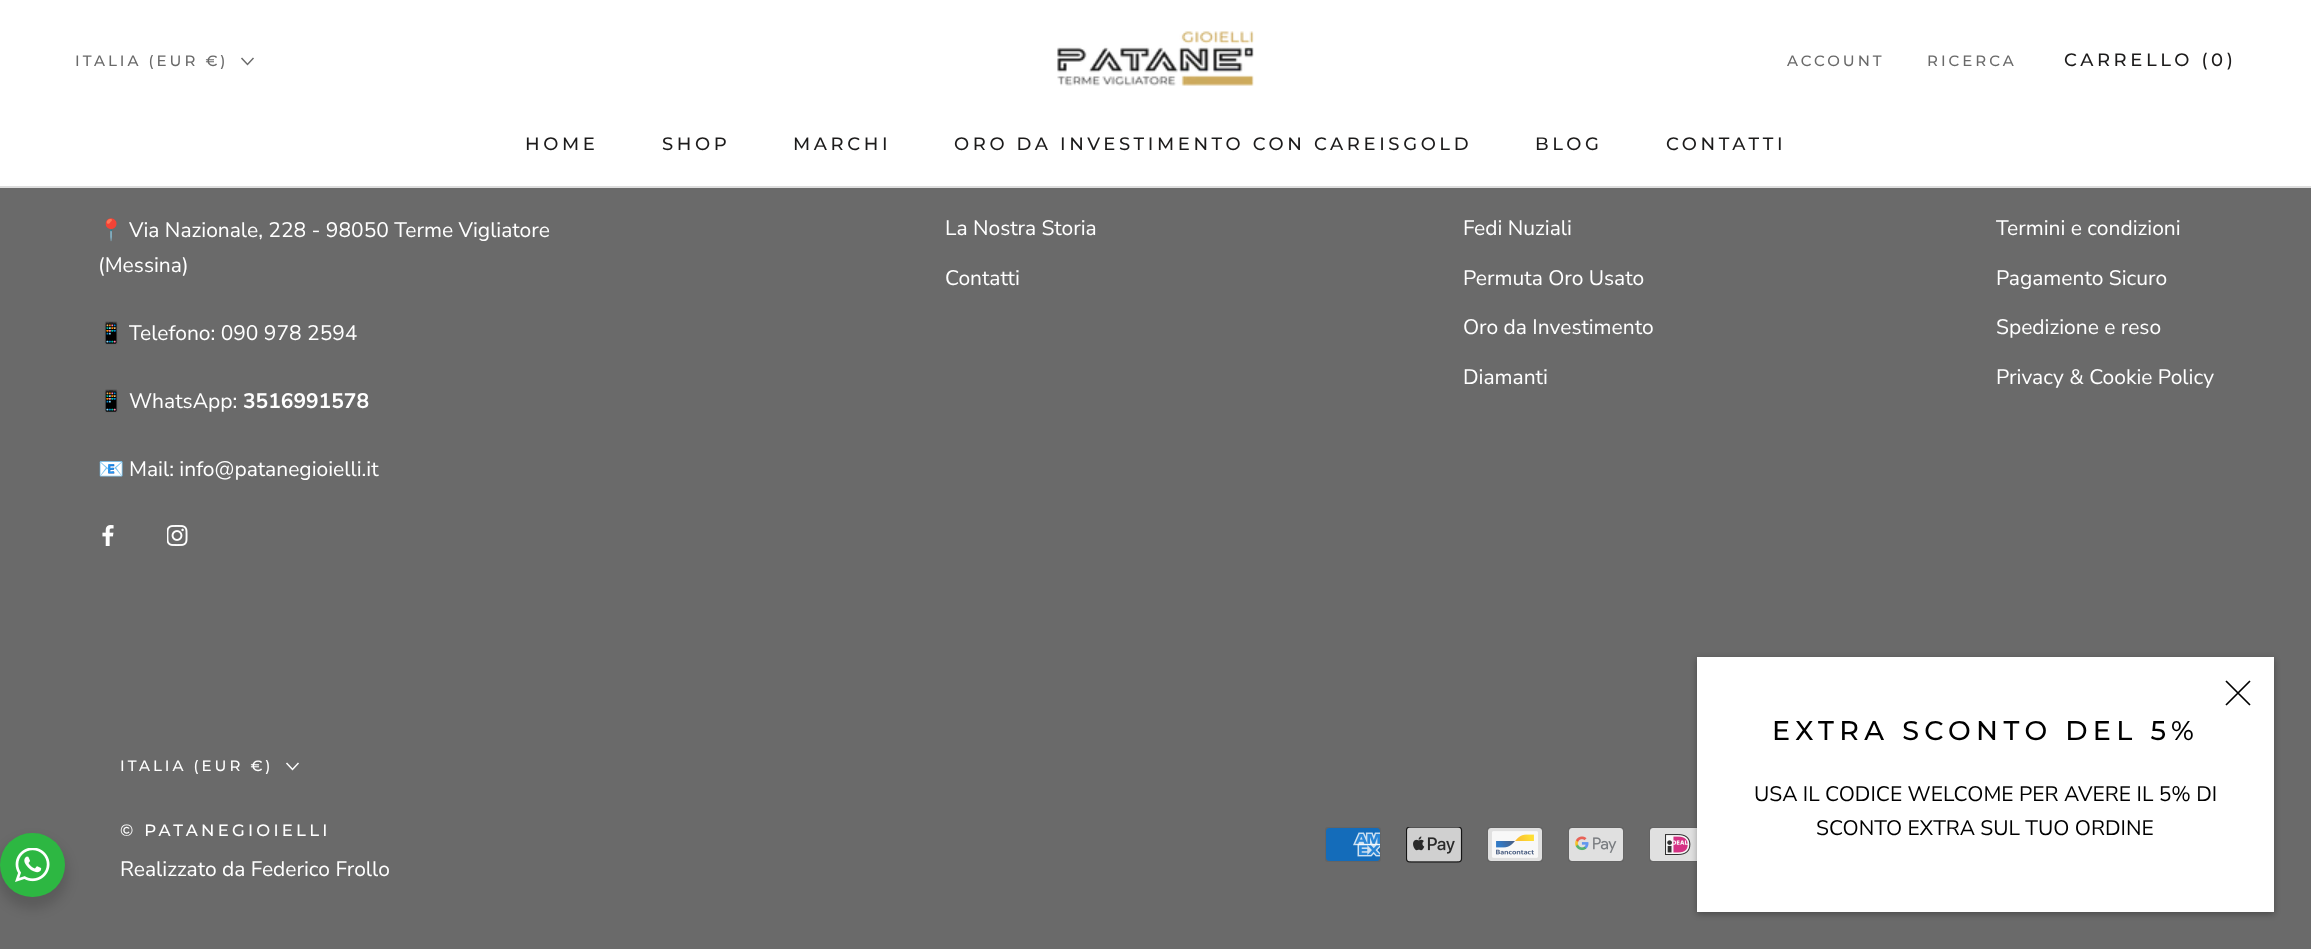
<svg xmlns="http://www.w3.org/2000/svg" width="2311" height="949">
<rect width="100%" height="100%" fill="#6a6a6a"/>
<rect width="2311" height="186" fill="#fff"/>
<rect y="186" width="2311" height="2" fill="#ddd"/>
<image x="1057" y="31" width="197" height="55" href="media/1.png"/>
<text x="1787" y="66" style="font-family:Montserrat;font-size:15px;font-weight:500;letter-spacing:3px;fill:#6a6a6a">ACCOUNT</text>
<text x="1927" y="66" style="font-family:Montserrat;font-size:15px;font-weight:500;letter-spacing:3px;fill:#6a6a6a">RICERCA</text>
<text x="2064" y="66" style="font-family:Montserrat;font-size:18px;font-weight:500;letter-spacing:3.6px;fill:#1c1b1b">CARRELLO (0)</text>
<text x="75" y="66" style="font-family:Montserrat;font-size:15px;font-weight:500;letter-spacing:3px;fill:#6a6a6a">ITALIA (EUR €)</text>
<path d="M253 58.5l-5.5 6l-5.5-6" fill="none" stroke="#6a6a6a" stroke-width="1.5" stroke-linecap="square"/>
<text x="525" y="150" style="font-family:Montserrat;font-size:18px;font-weight:500;letter-spacing:3.6px;fill:#1c1b1b">HOME</text>
<text x="662" y="150" style="font-family:Montserrat;font-size:18px;font-weight:500;letter-spacing:3.6px;fill:#1c1b1b">SHOP</text>
<text x="793" y="150" style="font-family:Montserrat;font-size:18px;font-weight:500;letter-spacing:3.6px;fill:#1c1b1b">MARCHI</text>
<text x="954" y="150" style="font-family:Montserrat;font-size:18px;font-weight:500;letter-spacing:3.6px;fill:#1c1b1b">ORO DA INVESTIMENTO CON CAREISGOLD</text>
<text x="1535" y="150" style="font-family:Montserrat;font-size:18px;font-weight:500;letter-spacing:3.6px;fill:#1c1b1b">BLOG</text>
<text x="1666" y="150" style="font-family:Montserrat;font-size:18px;font-weight:500;letter-spacing:3.6px;fill:#1c1b1b">CONTATTI</text>
<text x="98" y="237" style="font-family:Noto Color Emoji;font-size:21px;fill:#fff">📍</text>
<text x="129" y="237" style="font-family:Nunito Sans;font-size:21px;fill:#fff">Via Nazionale, 228 - 98050 Terme Vigliatore</text>
<text x="98" y="272" style="font-family:Nunito Sans;font-size:21px;fill:#fff">(Messina)</text>
<text x="98" y="340" style="font-family:Noto Color Emoji;font-size:21px;fill:#fff">📱</text>
<text x="129" y="340" style="font-family:Nunito Sans;font-size:21px;fill:#fff">Telefono: 090 978 2594</text>
<text x="98" y="408" style="font-family:Noto Color Emoji;font-size:21px;fill:#fff">📱</text>
<text x="129" y="408" style="font-family:Nunito Sans;font-size:21px;fill:#fff">WhatsApp:</text>
<text x="243" y="408" style="font-family:Nunito Sans;font-size:21px;font-weight:bold;fill:#fff">3516991578</text>
<text x="98" y="476" style="font-family:Noto Color Emoji;font-size:21px;fill:#fff">📧</text>
<text x="129" y="476" style="font-family:Nunito Sans;font-size:21px;fill:#fff">Mail: info@patanegioielli.it</text>
<image x="102" y="525" width="12" height="21" href="media/2.png"/>
<image x="167" y="525" width="21" height="21" href="media/3.png"/>
<text x="945" y="235" style="font-family:Nunito Sans;font-size:21px;fill:#fff">La Nostra Storia</text>
<text x="945" y="285" style="font-family:Nunito Sans;font-size:21px;fill:#fff">Contatti</text>
<text x="1463" y="235" style="font-family:Nunito Sans;font-size:21px;fill:#fff">Fedi Nuziali</text>
<text x="1463" y="285" style="font-family:Nunito Sans;font-size:21px;fill:#fff">Permuta Oro Usato</text>
<text x="1463" y="334" style="font-family:Nunito Sans;font-size:21px;fill:#fff">Oro da Investimento</text>
<text x="1463" y="384" style="font-family:Nunito Sans;font-size:21px;fill:#fff">Diamanti</text>
<text x="1996" y="235" style="font-family:Nunito Sans;font-size:21px;fill:#fff">Termini e condizioni</text>
<text x="1996" y="285" style="font-family:Nunito Sans;font-size:21px;fill:#fff">Pagamento Sicuro</text>
<text x="1996" y="334" style="font-family:Nunito Sans;font-size:21px;fill:#fff">Spedizione e reso</text>
<text x="1996" y="384" style="font-family:Nunito Sans;font-size:21px;fill:#fff">Privacy &amp; Cookie Policy</text>
<text x="120" y="771" style="font-family:Montserrat;font-size:15px;font-weight:500;letter-spacing:3px;fill:#fff">ITALIA (EUR €)</text>
<path d="M298 763.5l-5.5 6l-5.5-6" fill="none" stroke="#fff" stroke-width="1.5" stroke-linecap="square"/>
<text x="120" y="836" style="font-family:Montserrat;font-size:16.5px;font-weight:500;letter-spacing:3.25px;fill:#fff">© PATANEGIOIELLI</text>
<text x="120" y="876" style="font-family:Nunito Sans;font-size:21px;fill:#fff">Realizzato da Federico Frollo</text>
<image x="1325" y="827" width="56" height="35" href="media/4.png"/>
<image x="1406" y="827" width="57" height="36" href="media/5.png"/>
<image x="1487" y="827" width="56" height="35" href="media/6.png"/>
<image x="1568" y="827" width="56" height="35" href="media/7.png"/>
<image x="1649" y="827" width="48" height="35" href="media/8.png"/>
<rect x="1697" y="659" width="577" height="255" fill="#0000004d" filter="blur(3px)"/>
<rect x="1697" y="657" width="577" height="255" fill="#fff"/>
<path d="M2250 681l-24 24m24 0l-24-24" fill="none" stroke="#000" stroke-width="1.7"/>
<text x="1772" y="740" style="font-family:Montserrat;font-size:27px;font-weight:500;letter-spacing:5.4px;fill:#000">EXTRA SCONTO DEL 5%</text>
<text x="1754" y="801" style="font-family:Nunito Sans;font-size:21px;fill:#000">USA IL CODICE WELCOME PER AVERE IL 5% DI</text>
<text x="1816" y="835" style="font-family:Nunito Sans;font-size:21px;fill:#000">SCONTO EXTRA SUL TUO ORDINE</text>
<rect x="-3" y="839" width="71" height="70" rx="35" fill="#00000024" filter="blur(6px)"/>
<rect y="833" width="65" height="64" rx="32" fill="#2db742"/>
<image x="15" y="848" width="35" height="34" href="media/9.png"/>
</svg>
